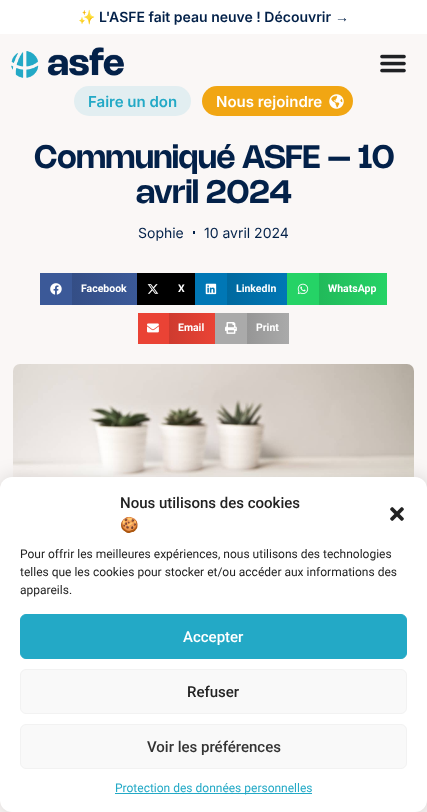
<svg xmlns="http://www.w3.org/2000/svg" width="427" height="812">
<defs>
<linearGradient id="g1" gradientUnits="userSpaceOnUse" x1="72" y1="289" x2="137" y2="289"><stop offset="0" stop-color="#344e86"/><stop offset="1" stop-color="#3b5998"/></linearGradient>
<linearGradient id="g2" gradientUnits="userSpaceOnUse" x1="227" y1="289" x2="287" y2="289"><stop offset="0" stop-color="#00699f"/><stop offset="1" stop-color="#0077b5"/></linearGradient>
<linearGradient id="g3" gradientUnits="userSpaceOnUse" x1="319" y1="289" x2="387" y2="289"><stop offset="0" stop-color="#21ba5a"/><stop offset="1" stop-color="#25d366"/></linearGradient>
<linearGradient id="g4" gradientUnits="userSpaceOnUse" x1="169" y1="329" x2="215" y2="329"><stop offset="0" stop-color="#ce3b2f"/><stop offset="1" stop-color="#ea4335"/></linearGradient>
<linearGradient id="g5" gradientUnits="userSpaceOnUse" x1="247" y1="329" x2="289" y2="329"><stop offset="0" stop-color="#969696"/><stop offset="1" stop-color="#aaa"/></linearGradient>
</defs>
<rect width="100%" height="100%" fill="#fff"/>
<text x="78" y="22" style="font-family:Noto Color Emoji;font-size:14px;font-weight:bold;fill:#032149">✨</text>
<text x="99" y="22" style="font-family:Inter;font-size:14px;font-weight:600;fill:#032149">L'ASFE fait peau neuve ! Découvrir</text>
<text x="335" y="22" style="font-family:Liberation Sans;font-size:14px;font-weight:bold;fill:#032149">→</text>
<rect y="34" width="427" height="778" fill="#faf7f6"/>
<image x="11" y="47" width="113" height="31" href="media/1.png"/>
<image x="380" y="54" width="26" height="19" href="media/2.png"/>
<rect x="74" y="86" width="117" height="30" rx="15" fill="#e2eef1"/>
<text x="88" y="107" style="font-family:Inter;font-size:15px;font-weight:600;fill:#23a9c6">Faire un don</text>
<rect x="202" y="86" width="151" height="30" rx="15" fill="#f1a613"/>
<text x="216" y="107" style="font-family:Inter;font-size:15px;font-weight:600;fill:#fff">Nous rejoindre</text>
<image x="329" y="94" width="15" height="15" href="media/3.png"/>
<text x="34" y="168" style="font-family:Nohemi;font-size:32px;font-weight:600;letter-spacing:-0.25px;fill:#032149">Communiqué ASFE – 10</text>
<text x="136" y="203" style="font-family:Nohemi;font-size:32px;font-weight:600;letter-spacing:-0.25px;fill:#032149">avril 2024</text>
<text x="138" y="238" style="font-family:Inter;font-size:14px;fill:#032149">Sophie</text>
<rect x="193" y="231" width="2" height="3" fill="#032149"/>
<text x="204" y="238" style="font-family:Inter;font-size:14px;fill:#032149">10 avril 2024</text>
<rect x="40" y="273" width="32" height="32" fill="#3b5998"/>
<image x="50" y="283" width="12" height="12" href="media/4.png"/>
<rect x="72" y="273" width="65" height="32" fill="url(#g1)"/>
<text x="81" y="292" style="font-family:Roboto;font-size:10.5px;font-weight:bold;fill:#fff">Facebook</text>
<rect x="137" y="273" width="58" height="32" fill="#000"/>
<image x="147" y="284" width="12" height="10" href="media/5.png"/>
<text x="178" y="292" style="font-family:Roboto;font-size:10.5px;font-weight:bold;fill:#fff">X</text>
<rect x="195" y="273" width="32" height="32" fill="#0077b5"/>
<image x="205" y="283" width="12" height="12" href="media/6.png"/>
<rect x="227" y="273" width="60" height="32" fill="url(#g2)"/>
<text x="236" y="292" style="font-family:Roboto;font-size:10.5px;font-weight:bold;fill:#fff">LinkedIn</text>
<rect x="287" y="273" width="32" height="32" fill="#25d366"/>
<image x="297" y="283" width="12" height="12" href="media/7.png"/>
<rect x="319" y="273" width="68" height="32" fill="url(#g3)"/>
<text x="328" y="292" style="font-family:Roboto;font-size:10.5px;font-weight:bold;fill:#fff">WhatsApp</text>
<rect x="138" y="313" width="31" height="31" fill="#ea4335"/>
<image x="147" y="323" width="12" height="10" href="media/8.png"/>
<rect x="169" y="313" width="46" height="31" fill="url(#g4)"/>
<text x="178" y="331" style="font-family:Roboto;font-size:10.5px;font-weight:bold;fill:#fff">Email</text>
<rect x="215" y="313" width="32" height="31" fill="#aaa"/>
<image x="225" y="322" width="12" height="12" href="media/9.png"/>
<rect x="247" y="313" width="42" height="31" fill="url(#g5)"/>
<text x="256" y="331" style="font-family:Roboto;font-size:10.5px;font-weight:bold;fill:#fff">Print</text>
<image x="13" y="364" width="401" height="113" href="media/10.png"/>
<rect x="1" y="478" width="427" height="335" rx="12" fill="#00000029" filter="blur(10px)"/>
<rect y="477" width="427" height="335" rx="12" fill="#fff"/>
<text x="120" y="508" style="font-family:Roboto;font-size:15px;font-weight:500;fill:#222">Nous utilisons des cookies</text>
<text x="120" y="530" style="font-family:Noto Color Emoji;font-size:15px;fill:#222">🍪</text>
<image x="390" y="507" width="14" height="14" href="media/11.png"/>
<text x="20" y="558" style="font-family:Roboto;font-size:12px;fill:#222">Pour offrir les meilleures expériences, nous utilisons des technologies</text>
<text x="20" y="576" style="font-family:Roboto;font-size:12px;fill:#222">telles que les cookies pour stocker et/ou accéder aux informations des</text>
<text x="20" y="594" style="font-family:Roboto;font-size:12px;fill:#222">appareils.</text>
<rect x="20.5" y="614.5" width="386" height="44" rx="5.5" fill="#23a9c6" stroke="#23a9c6"/>
<text x="183" y="642" style="font-family:Roboto;font-size:15px;font-weight:500;fill:#fff">Accepter</text>
<rect x="20.5" y="669.5" width="386" height="44" rx="5.5" fill="#f9f9f9" stroke="#f2f2f2"/>
<text x="187" y="697" style="font-family:Roboto;font-size:15px;font-weight:500;fill:#222">Refuser</text>
<rect x="20.5" y="724.5" width="386" height="44" rx="5.5" fill="#f9f9f9" stroke="#f2f2f2"/>
<text x="147" y="752" style="font-family:Roboto;font-size:15px;font-weight:500;fill:#333">Voir les préférences</text>
<rect x="115" y="793" width="197" height="1" fill="#23a9c6"/>
<text x="115" y="792" style="font-family:Roboto;font-size:12px;fill:#23a9c6">Protection des données personnelles</text>
</svg>
